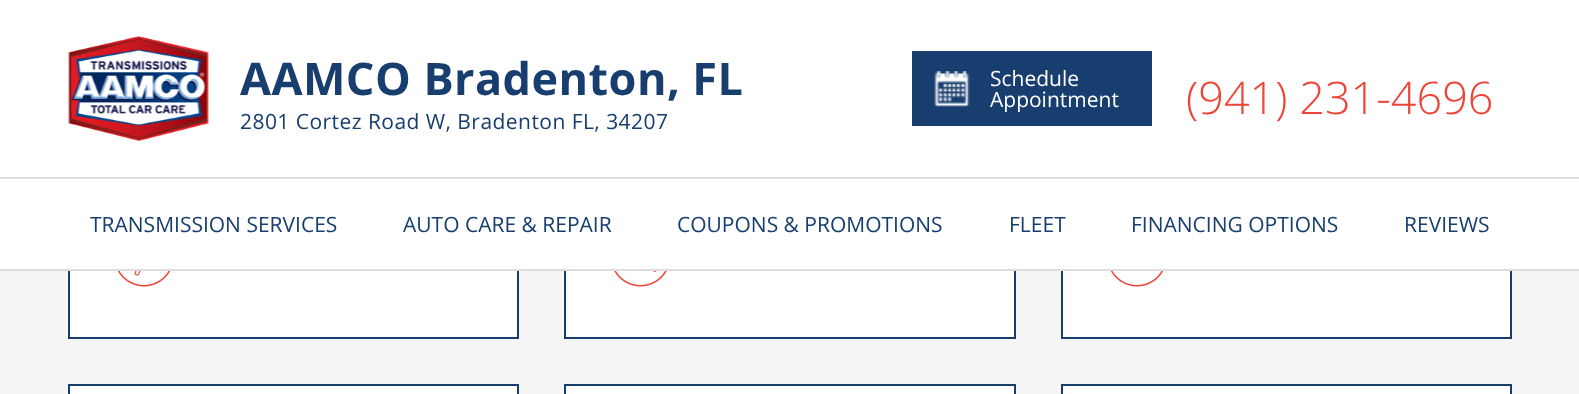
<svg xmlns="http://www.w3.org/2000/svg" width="1579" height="394">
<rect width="100%" height="100%" fill="#f5f5f5"/>
<rect x="70" y="271" width="447" height="66" fill="#fff"/>
<rect x="69" y="175" width="449" height="163" fill="none" stroke="#173e6e" stroke-width="2"/>
<rect x="566" y="271" width="448" height="66" fill="#fff"/>
<rect x="565" y="175" width="450" height="163" fill="none" stroke="#173e6e" stroke-width="2"/>
<rect x="1063" y="271" width="447" height="66" fill="#fff"/>
<rect x="1062" y="175" width="449" height="163" fill="none" stroke="#173e6e" stroke-width="2"/>
<rect width="1579" height="269" fill="#fff"/>
<image x="68" y="36" width="141" height="105" href="media/1.png"/>
<text x="240" y="95" style="font-family:Open Sans;font-size:45px;font-weight:bold;letter-spacing:0.45px;fill:#173e6e">AAMCO Bradenton, FL</text>
<text x="240" y="129" style="font-family:Open Sans;font-size:21px;letter-spacing:0.45px;fill:#173e6e">2801 Cortez Road W, Bradenton FL, 34207</text>
<rect x="912" y="51" width="240" height="75" fill="#173e6e"/>
<image x="934" y="71" width="36" height="36" href="media/2.png"/>
<text x="990" y="86" style="font-family:Open Sans;font-size:21px;fill:#fff">Schedule</text>
<text x="990" y="107" style="font-family:Open Sans;font-size:21px;fill:#fff">Appointment</text>
<text x="1186" y="114" style="font-family:Open Sans;font-size:45px;font-weight:300;fill:#ee4438">(941) 231-4696</text>
<rect y="177" width="1579" height="2" fill="#ddd"/>
<rect y="269" width="1579" height="2" fill="#ddd"/>
<text x="90" y="232" style="font-family:Open Sans;font-size:21px;fill:#173e6e">TRANSMISSION SERVICES</text>
<text x="403" y="232" style="font-family:Open Sans;font-size:21px;fill:#173e6e">AUTO CARE &amp; REPAIR</text>
<text x="677" y="232" style="font-family:Open Sans;font-size:21px;fill:#173e6e">COUPONS &amp; PROMOTIONS</text>
<text x="1009" y="232" style="font-family:Open Sans;font-size:21px;fill:#173e6e">FLEET</text>
<text x="1131" y="232" style="font-family:Open Sans;font-size:21px;fill:#173e6e">FINANCING OPTIONS</text>
<text x="1404" y="232" style="font-family:Open Sans;font-size:21px;fill:#173e6e">REVIEWS</text>
<image x="117" y="271" width="54" height="16" href="media/3.png"/>
<image x="614" y="271" width="53" height="16" href="media/4.png"/>
<image x="1110" y="271" width="54" height="16" href="media/5.png"/>
<rect x="69" y="385" width="449" height="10" fill="#fff" stroke="#173e6e" stroke-width="2"/>
<rect x="565" y="385" width="450" height="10" fill="#fff" stroke="#173e6e" stroke-width="2"/>
<rect x="1062" y="385" width="449" height="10" fill="#fff" stroke="#173e6e" stroke-width="2"/>
</svg>
